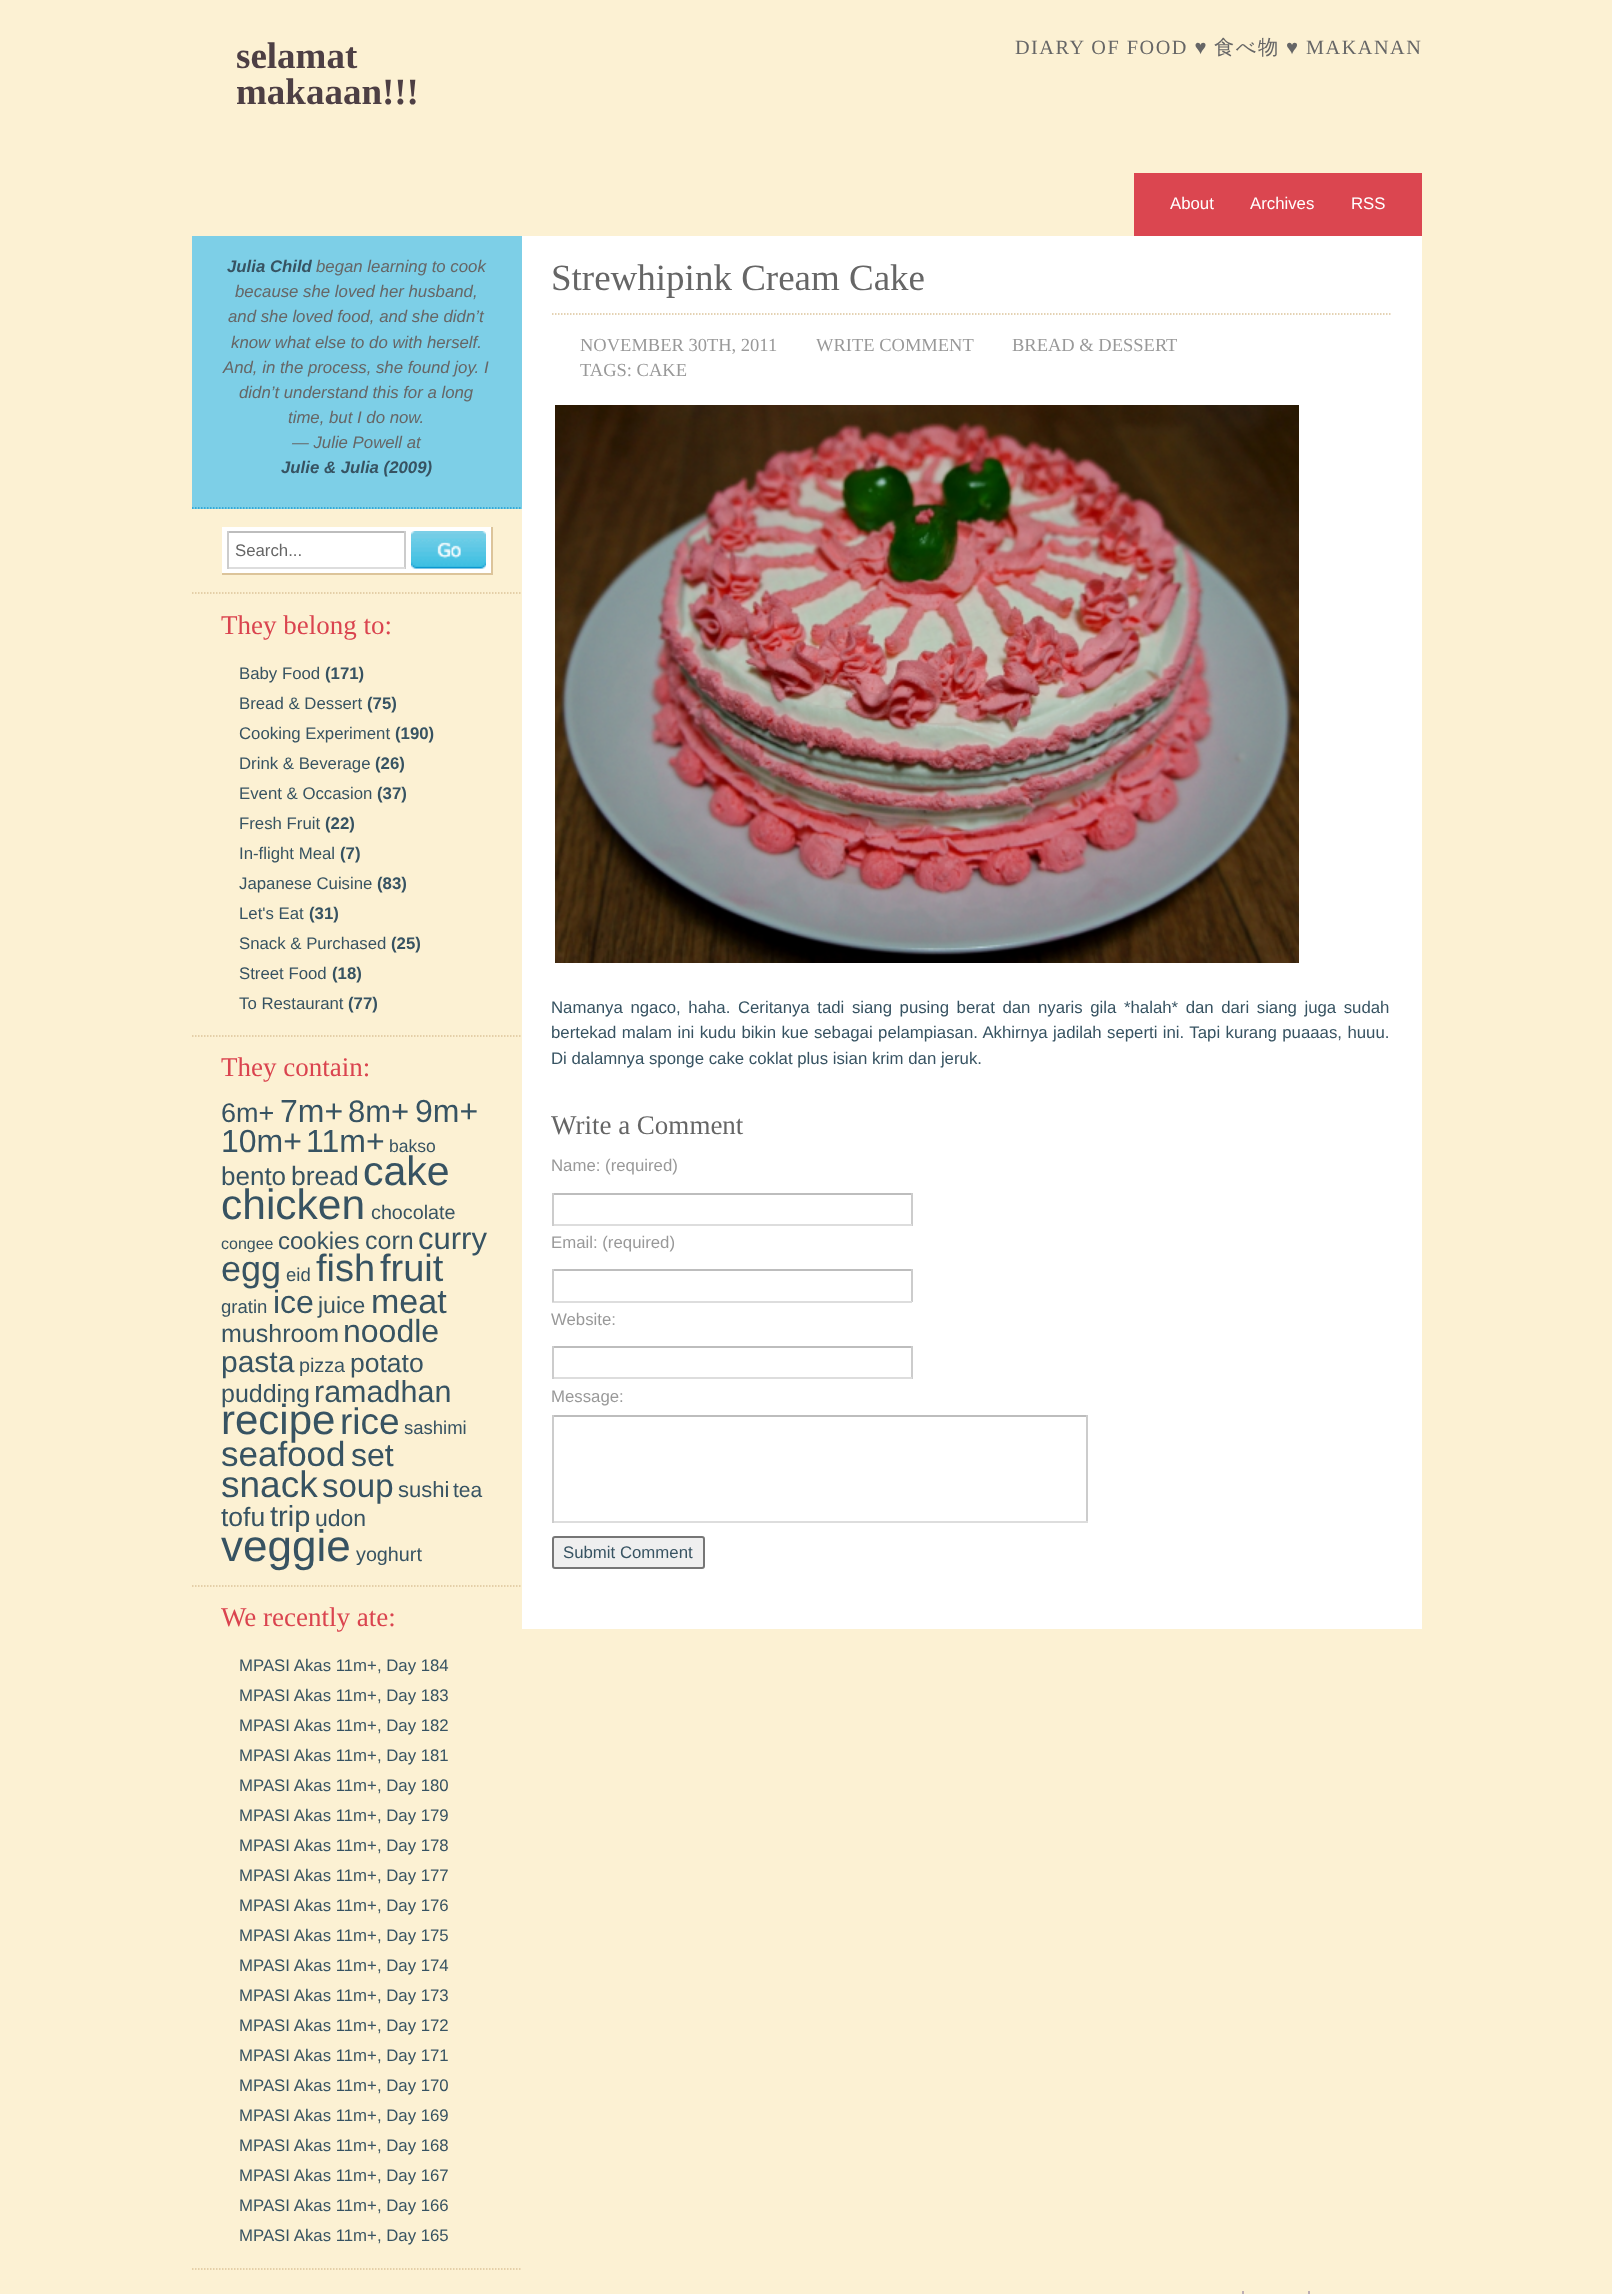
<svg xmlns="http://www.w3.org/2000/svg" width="1612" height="2294">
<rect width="100%" height="100%" fill="#fcf1d3"/>
<text x="236" y="68" style="font-family:Liberation Serif;font-size:37px;font-weight:bold;fill:#4d3f44">selamat</text>
<text x="236" y="104" style="font-family:Liberation Serif;font-size:37px;font-weight:bold;fill:#4d3f44">makaaan!!!</text>
<text x="1015" y="54" style="font-family:Liberation Serif;font-size:20.25px;letter-spacing:1.5px;fill:#666">DIARY OF FOOD ♥</text>
<text x="1214" y="54" style="font-family:WenQuanYi Zen Hei;font-size:20.25px;font-weight:500;letter-spacing:1.5px;fill:#666">食べ物</text>
<text x="1286" y="54" style="font-family:Liberation Serif;font-size:20.25px;letter-spacing:1.5px;fill:#666">♥ MAKANAN</text>
<rect x="1134" y="173" width="288" height="63" fill="#db4650"/>
<text x="1170" y="209" style="font-family:Liberation Sans;font-size:16.8px;fill:#fff">About</text>
<text x="1250" y="209" style="font-family:Liberation Sans;font-size:16.8px;fill:#fff">Archives</text>
<text x="1351" y="209" style="font-family:Liberation Sans;font-size:16.8px;fill:#fff">RSS</text>
<rect x="192" y="236" width="330" height="273" fill="#7dcfe7"/>
<path d="M192 508h330" fill="none" stroke="#1f9fd4" stroke-width="1.5" stroke-dasharray="1.5 1.5"/>
<text x="227" y="272" style="font-family:Liberation Sans;font-size:16.8px;font-weight:bold;font-style:italic;fill:#375362">Julia Child</text>
<text x="316" y="272" style="font-family:Liberation Sans;font-size:16.8px;font-style:italic;fill:#666">began learning to cook</text>
<text x="235" y="297" style="font-family:Liberation Sans;font-size:16.8px;font-style:italic;fill:#666">because she loved her husband,</text>
<text x="228" y="322" style="font-family:Liberation Sans;font-size:16.8px;font-style:italic;fill:#666">and she loved food, and she didn’t</text>
<text x="231" y="348" style="font-family:Liberation Sans;font-size:16.8px;font-style:italic;fill:#666">know what else to do with herself.</text>
<text x="223" y="373" style="font-family:Liberation Sans;font-size:16.8px;font-style:italic;fill:#666">And, in the process, she found joy. I</text>
<text x="239" y="398" style="font-family:Liberation Sans;font-size:16.8px;font-style:italic;fill:#666">didn’t understand this for a long</text>
<text x="288" y="423" style="font-family:Liberation Sans;font-size:16.8px;font-style:italic;fill:#666">time, but I do now.</text>
<text x="292" y="448" style="font-family:Liberation Sans;font-size:16.8px;font-style:italic;fill:#666">— Julie Powell at</text>
<text x="281" y="473" style="font-family:Liberation Sans;font-size:16.8px;font-weight:bold;font-style:italic;fill:#375362">Julie &amp; Julia (2009)</text>
<path d="M192 593h330" fill="none" stroke="#dcc49a" stroke-width="1.5" stroke-dasharray="1.5 1.5"/>
<rect x="222" y="527" width="269" height="46" fill="#fff"/>
<rect x="491" y="527" width="2" height="48" fill="#dcc49a"/>
<rect x="222" y="573" width="270" height="2" fill="#dcc49a"/>
<rect x="227" y="531" width="178" height="2" fill="#bdbdbd"/>
<rect x="404" y="531" width="2" height="38" fill="#ccc"/>
<rect x="227" y="567" width="178" height="2" fill="#ddd"/>
<rect x="227" y="531" width="2" height="38" fill="#ccc"/>
<image x="411" y="531" width="75" height="38" href="media/1.png"/>
<text x="235" y="556" style="font-family:Liberation Sans;font-size:16.8px;fill:#666">Search...</text>
<path d="M192 1036h330" fill="none" stroke="#dcc49a" stroke-width="1.5" stroke-dasharray="1.5 1.5"/>
<text x="221" y="634" style="font-family:Liberation Serif;font-size:27px;fill:#da444f">They belong to:</text>
<text x="239" y="679" style="font-family:Liberation Sans;font-size:16.8px;fill:#375362">Baby Food</text>
<text x="325" y="679" style="font-family:Liberation Sans;font-size:16.8px;font-weight:bold;fill:#375362">(171)</text>
<text x="239" y="709" style="font-family:Liberation Sans;font-size:16.8px;fill:#375362">Bread &amp; Dessert</text>
<text x="367" y="709" style="font-family:Liberation Sans;font-size:16.8px;font-weight:bold;fill:#375362">(75)</text>
<text x="239" y="739" style="font-family:Liberation Sans;font-size:16.8px;fill:#375362">Cooking Experiment</text>
<text x="395" y="739" style="font-family:Liberation Sans;font-size:16.8px;font-weight:bold;fill:#375362">(190)</text>
<text x="239" y="769" style="font-family:Liberation Sans;font-size:16.8px;fill:#375362">Drink &amp; Beverage</text>
<text x="375" y="769" style="font-family:Liberation Sans;font-size:16.8px;font-weight:bold;fill:#375362">(26)</text>
<text x="239" y="799" style="font-family:Liberation Sans;font-size:16.8px;fill:#375362">Event &amp; Occasion</text>
<text x="377" y="799" style="font-family:Liberation Sans;font-size:16.8px;font-weight:bold;fill:#375362">(37)</text>
<text x="239" y="829" style="font-family:Liberation Sans;font-size:16.8px;fill:#375362">Fresh Fruit</text>
<text x="325" y="829" style="font-family:Liberation Sans;font-size:16.8px;font-weight:bold;fill:#375362">(22)</text>
<text x="239" y="859" style="font-family:Liberation Sans;font-size:16.8px;fill:#375362">In-flight Meal</text>
<text x="340" y="859" style="font-family:Liberation Sans;font-size:16.8px;font-weight:bold;fill:#375362">(7)</text>
<text x="239" y="889" style="font-family:Liberation Sans;font-size:16.8px;fill:#375362">Japanese Cuisine</text>
<text x="377" y="889" style="font-family:Liberation Sans;font-size:16.8px;font-weight:bold;fill:#375362">(83)</text>
<text x="239" y="919" style="font-family:Liberation Sans;font-size:16.8px;fill:#375362">Let's Eat</text>
<text x="309" y="919" style="font-family:Liberation Sans;font-size:16.8px;font-weight:bold;fill:#375362">(31)</text>
<text x="239" y="949" style="font-family:Liberation Sans;font-size:16.8px;fill:#375362">Snack &amp; Purchased</text>
<text x="391" y="949" style="font-family:Liberation Sans;font-size:16.8px;font-weight:bold;fill:#375362">(25)</text>
<text x="239" y="979" style="font-family:Liberation Sans;font-size:16.8px;fill:#375362">Street Food</text>
<text x="332" y="979" style="font-family:Liberation Sans;font-size:16.8px;font-weight:bold;fill:#375362">(18)</text>
<text x="239" y="1009" style="font-family:Liberation Sans;font-size:16.8px;fill:#375362">To Restaurant</text>
<text x="348" y="1009" style="font-family:Liberation Sans;font-size:16.8px;font-weight:bold;fill:#375362">(77)</text>
<path d="M192 1586h330" fill="none" stroke="#dcc49a" stroke-width="1.5" stroke-dasharray="1.5 1.5"/>
<text x="221" y="1076" style="font-family:Liberation Serif;font-size:27px;fill:#da444f">They contain:</text>
<text x="221" y="1122" style="font-family:Liberation Sans;font-size:27px;fill:#375362">6m+</text>
<text x="280" y="1122" style="font-family:Liberation Sans;font-size:32px;fill:#375362">7m+</text>
<text x="348" y="1122" style="font-family:Liberation Sans;font-size:31px;fill:#375362">8m+</text>
<text x="415" y="1122" style="font-family:Liberation Sans;font-size:32px;fill:#375362">9m+</text>
<text x="221" y="1152" style="font-family:Liberation Sans;font-size:32px;fill:#375362">10m+</text>
<text x="306" y="1152" style="font-family:Liberation Sans;font-size:32px;fill:#375362">11m+</text>
<text x="389" y="1152" style="font-family:Liberation Sans;font-size:17.5px;fill:#375362">bakso</text>
<text x="221" y="1185" style="font-family:Liberation Sans;font-size:26px;fill:#375362">bento</text>
<text x="291" y="1185" style="font-family:Liberation Sans;font-size:26.5px;fill:#375362">bread</text>
<text x="363" y="1185" style="font-family:Liberation Sans;font-size:41px;fill:#375362">cake</text>
<text x="221" y="1219" style="font-family:Liberation Sans;font-size:42.5px;fill:#375362">chicken</text>
<text x="371" y="1219" style="font-family:Liberation Sans;font-size:19.75px;fill:#375362">chocolate</text>
<text x="221" y="1249" style="font-family:Liberation Sans;font-size:16px;fill:#375362">congee</text>
<text x="278" y="1249" style="font-family:Liberation Sans;font-size:24px;fill:#375362">cookies</text>
<text x="365" y="1249" style="font-family:Liberation Sans;font-size:25px;fill:#375362">corn</text>
<text x="418" y="1249" style="font-family:Liberation Sans;font-size:31px;fill:#375362">curry</text>
<text x="221" y="1281" style="font-family:Liberation Sans;font-size:36px;fill:#375362">egg</text>
<text x="286" y="1281" style="font-family:Liberation Sans;font-size:18.5px;fill:#375362">eid</text>
<text x="316" y="1281" style="font-family:Liberation Sans;font-size:38px;fill:#375362">fish</text>
<text x="380" y="1281" style="font-family:Liberation Sans;font-size:38px;fill:#375362">fruit</text>
<text x="221" y="1313" style="font-family:Liberation Sans;font-size:18.5px;fill:#375362">gratin</text>
<text x="273" y="1313" style="font-family:Liberation Sans;font-size:32px;fill:#375362">ice</text>
<text x="318" y="1313" style="font-family:Liberation Sans;font-size:23px;fill:#375362">juice</text>
<text x="371" y="1313" style="font-family:Liberation Sans;font-size:34px;fill:#375362">meat</text>
<text x="221" y="1342" style="font-family:Liberation Sans;font-size:25px;fill:#375362">mushroom</text>
<text x="343" y="1342" style="font-family:Liberation Sans;font-size:32px;fill:#375362">noodle</text>
<text x="221" y="1372" style="font-family:Liberation Sans;font-size:30px;fill:#375362">pasta</text>
<text x="299" y="1372" style="font-family:Liberation Sans;font-size:19.75px;fill:#375362">pizza</text>
<text x="350" y="1372" style="font-family:Liberation Sans;font-size:26.5px;fill:#375362">potato</text>
<text x="221" y="1402" style="font-family:Liberation Sans;font-size:25px;fill:#375362">pudding</text>
<text x="314" y="1402" style="font-family:Liberation Sans;font-size:30.5px;fill:#375362">ramadhan</text>
<text x="221" y="1434" style="font-family:Liberation Sans;font-size:42px;fill:#375362">recipe</text>
<text x="340" y="1434" style="font-family:Liberation Sans;font-size:37px;fill:#375362">rice</text>
<text x="404" y="1434" style="font-family:Liberation Sans;font-size:18.5px;fill:#375362">sashimi</text>
<text x="221" y="1466" style="font-family:Liberation Sans;font-size:35px;fill:#375362">seafood</text>
<text x="351" y="1466" style="font-family:Liberation Sans;font-size:32px;fill:#375362">set</text>
<text x="221" y="1497" style="font-family:Liberation Sans;font-size:37px;fill:#375362">snack</text>
<text x="322" y="1497" style="font-family:Liberation Sans;font-size:33px;fill:#375362">soup</text>
<text x="398" y="1497" style="font-family:Liberation Sans;font-size:22px;fill:#375362">sushi</text>
<text x="453" y="1497" style="font-family:Liberation Sans;font-size:21px;fill:#375362">tea</text>
<text x="221" y="1526" style="font-family:Liberation Sans;font-size:26.5px;fill:#375362">tofu</text>
<text x="270" y="1526" style="font-family:Liberation Sans;font-size:29px;fill:#375362">trip</text>
<text x="315" y="1526" style="font-family:Liberation Sans;font-size:23px;fill:#375362">udon</text>
<text x="221" y="1561" style="font-family:Liberation Sans;font-size:44px;fill:#375362">veggie</text>
<text x="356" y="1561" style="font-family:Liberation Sans;font-size:19.75px;fill:#375362">yoghurt</text>
<path d="M192 2269h330" fill="none" stroke="#dcc49a" stroke-width="1.5" stroke-dasharray="1.5 1.5"/>
<text x="221" y="1626" style="font-family:Liberation Serif;font-size:27px;fill:#da444f">We recently ate:</text>
<text x="239" y="1671" style="font-family:Liberation Sans;font-size:16.8px;fill:#375362">MPASI Akas 11m+, Day 184</text>
<text x="239" y="1701" style="font-family:Liberation Sans;font-size:16.8px;fill:#375362">MPASI Akas 11m+, Day 183</text>
<text x="239" y="1731" style="font-family:Liberation Sans;font-size:16.8px;fill:#375362">MPASI Akas 11m+, Day 182</text>
<text x="239" y="1761" style="font-family:Liberation Sans;font-size:16.8px;fill:#375362">MPASI Akas 11m+, Day 181</text>
<text x="239" y="1791" style="font-family:Liberation Sans;font-size:16.8px;fill:#375362">MPASI Akas 11m+, Day 180</text>
<text x="239" y="1821" style="font-family:Liberation Sans;font-size:16.8px;fill:#375362">MPASI Akas 11m+, Day 179</text>
<text x="239" y="1851" style="font-family:Liberation Sans;font-size:16.8px;fill:#375362">MPASI Akas 11m+, Day 178</text>
<text x="239" y="1881" style="font-family:Liberation Sans;font-size:16.8px;fill:#375362">MPASI Akas 11m+, Day 177</text>
<text x="239" y="1911" style="font-family:Liberation Sans;font-size:16.8px;fill:#375362">MPASI Akas 11m+, Day 176</text>
<text x="239" y="1941" style="font-family:Liberation Sans;font-size:16.8px;fill:#375362">MPASI Akas 11m+, Day 175</text>
<text x="239" y="1971" style="font-family:Liberation Sans;font-size:16.8px;fill:#375362">MPASI Akas 11m+, Day 174</text>
<text x="239" y="2001" style="font-family:Liberation Sans;font-size:16.8px;fill:#375362">MPASI Akas 11m+, Day 173</text>
<text x="239" y="2031" style="font-family:Liberation Sans;font-size:16.8px;fill:#375362">MPASI Akas 11m+, Day 172</text>
<text x="239" y="2061" style="font-family:Liberation Sans;font-size:16.8px;fill:#375362">MPASI Akas 11m+, Day 171</text>
<text x="239" y="2091" style="font-family:Liberation Sans;font-size:16.8px;fill:#375362">MPASI Akas 11m+, Day 170</text>
<text x="239" y="2121" style="font-family:Liberation Sans;font-size:16.8px;fill:#375362">MPASI Akas 11m+, Day 169</text>
<text x="239" y="2151" style="font-family:Liberation Sans;font-size:16.8px;fill:#375362">MPASI Akas 11m+, Day 168</text>
<text x="239" y="2181" style="font-family:Liberation Sans;font-size:16.8px;fill:#375362">MPASI Akas 11m+, Day 167</text>
<text x="239" y="2211" style="font-family:Liberation Sans;font-size:16.8px;fill:#375362">MPASI Akas 11m+, Day 166</text>
<text x="239" y="2241" style="font-family:Liberation Sans;font-size:16.8px;fill:#375362">MPASI Akas 11m+, Day 165</text>
<rect x="522" y="236" width="900" height="1393" fill="#fff"/>
<path d="M552 314h840" fill="none" stroke="#dcc49a" stroke-width="1.5" stroke-dasharray="1.5 1.5"/>
<text x="551" y="290" style="font-family:Liberation Serif;font-size:37px;fill:#666">Strewhipink Cream Cake</text>
<text x="580" y="351" style="font-family:Liberation Serif;font-size:18.5px;fill:#999">NOVEMBER 30TH, 2011</text>
<text x="816" y="351" style="font-family:Liberation Serif;font-size:18.5px;fill:#999">WRITE COMMENT</text>
<text x="1012" y="351" style="font-family:Liberation Serif;font-size:18.5px;fill:#999">BREAD &amp; DESSERT</text>
<text x="580" y="376" style="font-family:Liberation Serif;font-size:18.5px;fill:#999">TAGS: CAKE</text>
<image x="555" y="405" width="744" height="558" href="media/2.png"/>
<text x="551" y="1013" word-spacing="2.9" style="font-family:Liberation Sans;font-size:16.8px;fill:#375362">Namanya ngaco, haha. Ceritanya tadi siang pusing berat dan nyaris gila *halah* dan dari siang juga sudah</text>
<text x="551" y="1038" word-spacing="0.75" style="font-family:Liberation Sans;font-size:16.8px;fill:#375362">bertekad malam ini kudu bikin kue sebagai pelampiasan. Akhirnya jadilah seperti ini. Tapi kurang puaaas, huuu.</text>
<text x="551" y="1064" style="font-family:Liberation Sans;font-size:16.8px;fill:#375362">Di dalamnya sponge cake coklat plus isian krim dan jeruk.</text>
<text x="551" y="1134" style="font-family:Liberation Serif;font-size:27px;fill:#666">Write a Comment</text>
<text x="551" y="1171" style="font-family:Liberation Sans;font-size:16.8px;fill:#999">Name: (required)</text>
<rect x="552" y="1193" width="360" height="2" fill="#bdbdbd"/>
<rect x="911" y="1193" width="2" height="33" fill="#ccc"/>
<rect x="552" y="1224" width="360" height="2" fill="#ddd"/>
<rect x="552" y="1193" width="2" height="33" fill="#ccc"/>
<text x="551" y="1248" style="font-family:Liberation Sans;font-size:16.8px;fill:#999">Email: (required)</text>
<rect x="552" y="1269" width="360" height="2" fill="#bdbdbd"/>
<rect x="911" y="1269" width="2" height="33" fill="#ccc"/>
<rect x="552" y="1301" width="360" height="2" fill="#ddd"/>
<rect x="552" y="1269" width="2" height="33" fill="#ccc"/>
<text x="551" y="1325" style="font-family:Liberation Sans;font-size:16.8px;fill:#999">Website:</text>
<rect x="552" y="1346" width="360" height="2" fill="#bdbdbd"/>
<rect x="911" y="1346" width="2" height="33" fill="#ccc"/>
<rect x="552" y="1377" width="360" height="2" fill="#ddd"/>
<rect x="552" y="1346" width="2" height="33" fill="#ccc"/>
<text x="551" y="1402" style="font-family:Liberation Sans;font-size:16.8px;fill:#999">Message:</text>
<rect x="552" y="1415" width="536" height="2" fill="#bdbdbd"/>
<rect x="1086" y="1415" width="2" height="108" fill="#ccc"/>
<rect x="552" y="1521" width="536" height="2" fill="#ddd"/>
<rect x="552" y="1415" width="2" height="108" fill="#ccc"/>
<rect x="553" y="1537" width="151" height="31" rx="2" fill="#efefef" stroke="#767676" stroke-width="2"/>
<text x="563" y="1558" style="font-family:Liberation Sans;font-size:16.8px;fill:#375362">Submit Comment</text>
<rect x="1242" y="2291" width="2" height="3" fill="#bdaeb4"/>
<rect x="1308" y="2291" width="2" height="3" fill="#bdaeb4"/>
</svg>
